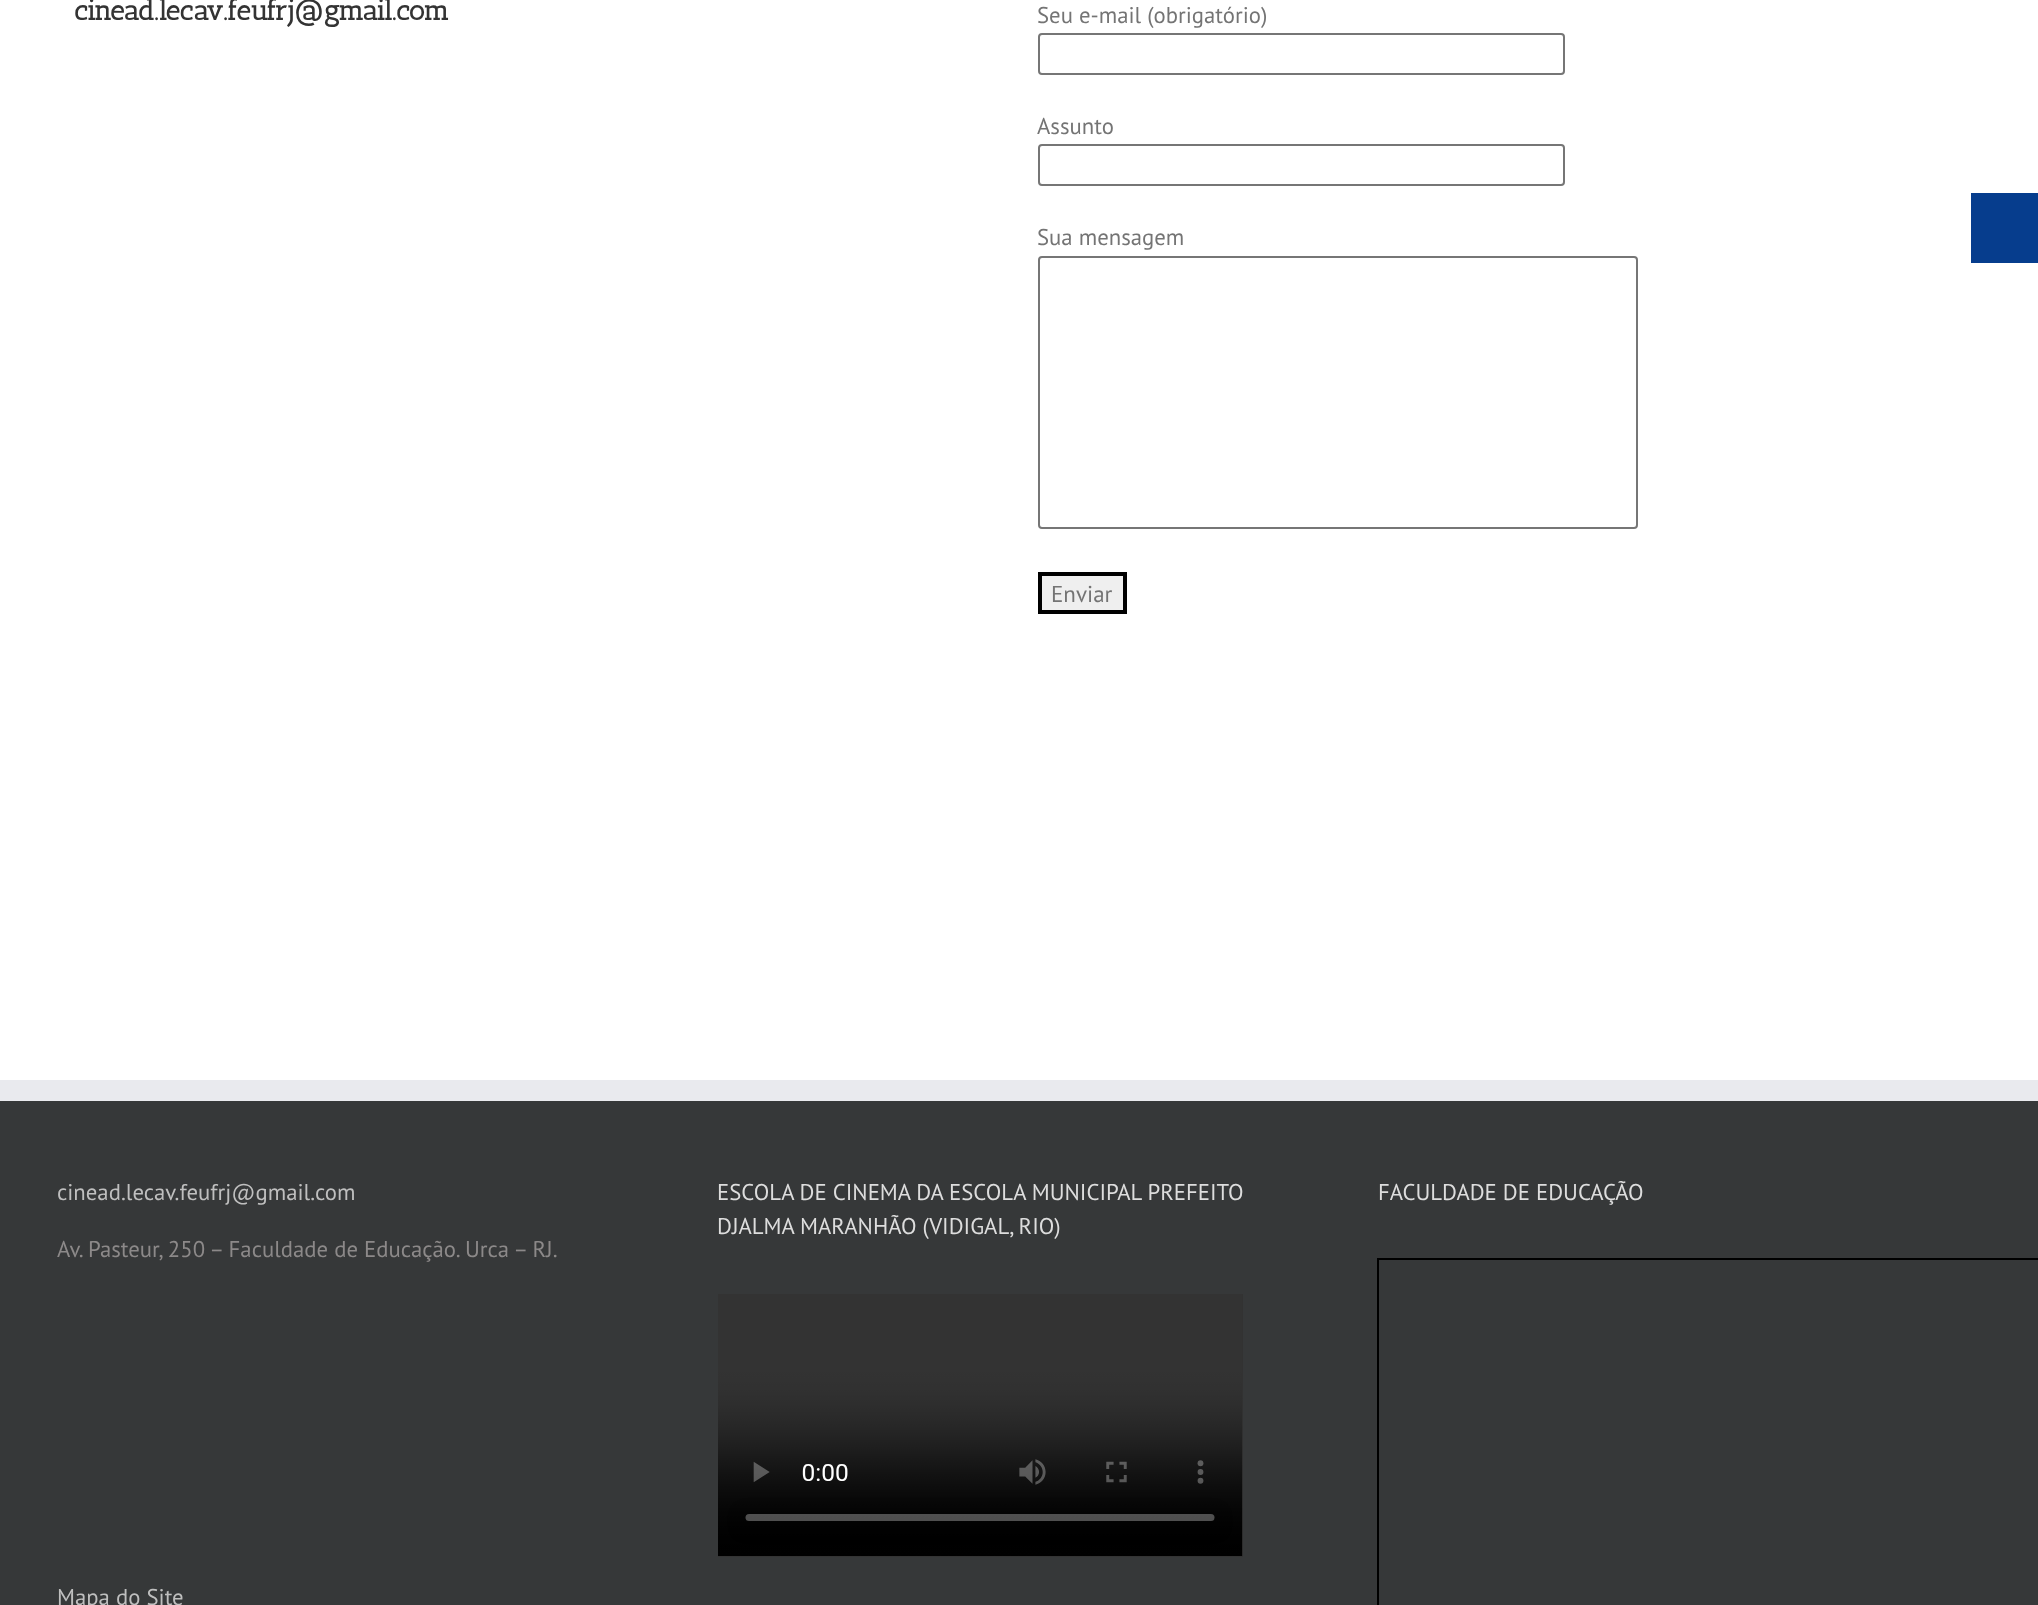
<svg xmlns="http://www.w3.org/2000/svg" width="2038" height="1605">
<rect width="100%" height="100%" fill="#fff"/>
<text x="74" y="20" style="font-family:Antic Slab;font-size:28px;font-weight:bold;fill:#333">cinead.lecav.feufrj@gmail.com</text>
<text x="1037" y="23" style="font-family:PT Sans;font-size:22.75px;fill:#747474">Seu e-mail (obrigatório)</text>
<rect x="1039" y="34" width="525" height="40" rx="3" fill="none" stroke="#767676" stroke-width="2"/>
<text x="1037" y="134" style="font-family:PT Sans;font-size:22.75px;fill:#747474">Assunto</text>
<rect x="1039" y="145" width="525" height="40" rx="3" fill="none" stroke="#767676" stroke-width="2"/>
<text x="1037" y="245" style="font-family:PT Sans;font-size:22.75px;fill:#747474">Sua mensagem</text>
<rect x="1039" y="257" width="598" height="271" rx="3" fill="none" stroke="#767676" stroke-width="2"/>
<rect x="1040" y="574" width="85" height="38" fill="#efefef" stroke="#000" stroke-width="4"/>
<text x="1051" y="602" style="font-family:PT Sans;font-size:23px;fill:#747474">Enviar</text>
<rect y="1101" width="2038" height="504" fill="#363839"/>
<rect y="1080" width="2038" height="21" fill="#e9eaee"/>
<text x="57" y="1200" style="font-family:PT Sans;font-size:22.75px;fill:#bfbfbf">cinead.lecav.feufrj@gmail.com</text>
<text x="57" y="1257" style="font-family:PT Sans;font-size:22.75px;fill:#8c8989">Av. Pasteur, 250 – Faculdade de Educação. Urca – RJ.</text>
<text x="57" y="1605" style="font-family:PT Sans;font-size:22.75px;fill:#bfbfbf">Mapa do Site</text>
<text x="717" y="1200" style="font-family:PT Sans;font-size:22.75px;fill:#ddd">ESCOLA DE CINEMA DA ESCOLA MUNICIPAL PREFEITO</text>
<text x="717" y="1234" style="font-family:PT Sans;font-size:22.75px;fill:#ddd">DJALMA MARANHÃO (VIDIGAL, RIO)</text>
<image x="718" y="1294" width="525" height="263" href="media/1.png"/>
<text x="1378" y="1200" style="font-family:PT Sans;font-size:22.75px;fill:#ddd">FACULDADE DE EDUCAÇÃO</text>
<rect x="1378" y="1259" width="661" height="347" fill="none" stroke="#000" stroke-width="2"/>
<rect x="1971" y="193" width="67" height="70" fill="#063d8d"/>
</svg>
